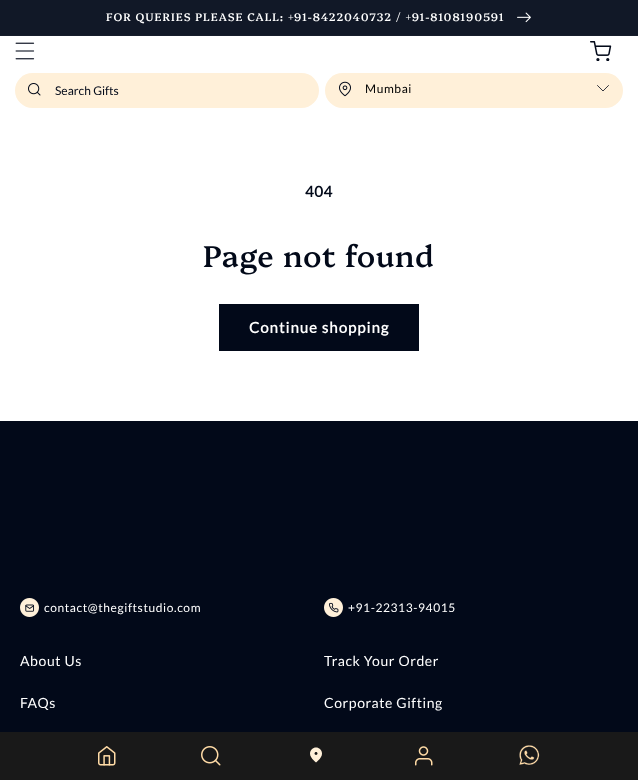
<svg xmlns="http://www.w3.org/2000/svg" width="638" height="780">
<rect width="100%" height="100%" fill="#fff"/>
<rect y="35" width="638" height="1" fill="#161d2b"/>
<rect width="638" height="35" fill="#111827"/>
<text x="106" y="21" style="font-family:Platypi;font-size:11px;font-weight:500;letter-spacing:1px;fill:#fff">FOR QUERIES PLEASE CALL: +91-8422040732 / +91-8108190591</text>
<image x="517" y="12" width="14" height="11" href="media/1.png"/>
<image x="15" y="42" width="20" height="18" href="media/2.png"/>
<image x="590" y="41" width="22" height="20" href="media/3.png"/>
<rect x="15" y="73" width="304" height="35" rx="17.5" fill="#fff0d9"/>
<image x="28" y="83" width="13" height="13" href="media/4.png"/>
<text x="55" y="95" style="font-family:Lato;font-size:12px;fill:#020919">Search Gifts</text>
<rect x="325" y="73" width="298" height="35" rx="17.5" fill="#fff0d9"/>
<image x="339" y="81" width="12" height="16" href="media/5.png"/>
<text x="365" y="93" style="font-family:Lato;font-size:12px;letter-spacing:0.6px;fill:#000">Mumbai</text>
<path d="M608.5 85.5l-5.5 5.5l-5.5-5.5" fill="none" stroke="#020919" stroke-width="0.8" stroke-linecap="round" stroke-linejoin="round"/>
<text x="305" y="197" style="font-family:Lato;font-size:15px;font-weight:bold;letter-spacing:0.6px;fill:#020919">404</text>
<text x="203" y="267" style="font-family:Platypi;font-size:30px;font-weight:500;letter-spacing:0.6px;fill:#020919">Page not found</text>
<rect x="219" y="304" width="200" height="47" fill="#020919"/>
<text x="249" y="333" style="font-family:Lato;font-size:15px;font-weight:bold;letter-spacing:1px;fill:#fff">Continue shopping</text>
<rect y="421" width="638" height="311" fill="#020919"/>
<image x="20" y="598" width="19" height="19" href="media/6.png"/>
<text x="44" y="612" style="font-family:Lato;font-size:12px;letter-spacing:0.6px;fill:#fff">contact@thegiftstudio.com</text>
<image x="324" y="598" width="19" height="19" href="media/7.png"/>
<text x="348" y="612" style="font-family:Lato;font-size:12px;letter-spacing:0.6px;fill:#fff">+91-22313-94015</text>
<text x="20" y="666" style="font-family:Lato;font-size:14px;letter-spacing:0.6px;fill:#fff">About Us</text>
<text x="20" y="708" style="font-family:Lato;font-size:14px;letter-spacing:0.6px;fill:#fff">FAQs</text>
<text x="324" y="666" style="font-family:Lato;font-size:14px;letter-spacing:0.6px;fill:#fff">Track Your Order</text>
<text x="324" y="708" style="font-family:Lato;font-size:14px;letter-spacing:0.6px;fill:#fff">Corporate Gifting</text>
<rect y="732" width="638" height="48" fill="#191919"/>
<image x="98" y="746" width="18" height="20" href="media/8.png"/>
<image x="201" y="746" width="20" height="20" href="media/9.png"/>
<image x="310" y="747" width="12" height="16" href="media/10.png"/>
<image x="415" y="746" width="18" height="20" href="media/11.png"/>
<image x="519" y="745" width="21" height="21" href="media/12.png"/>
</svg>
